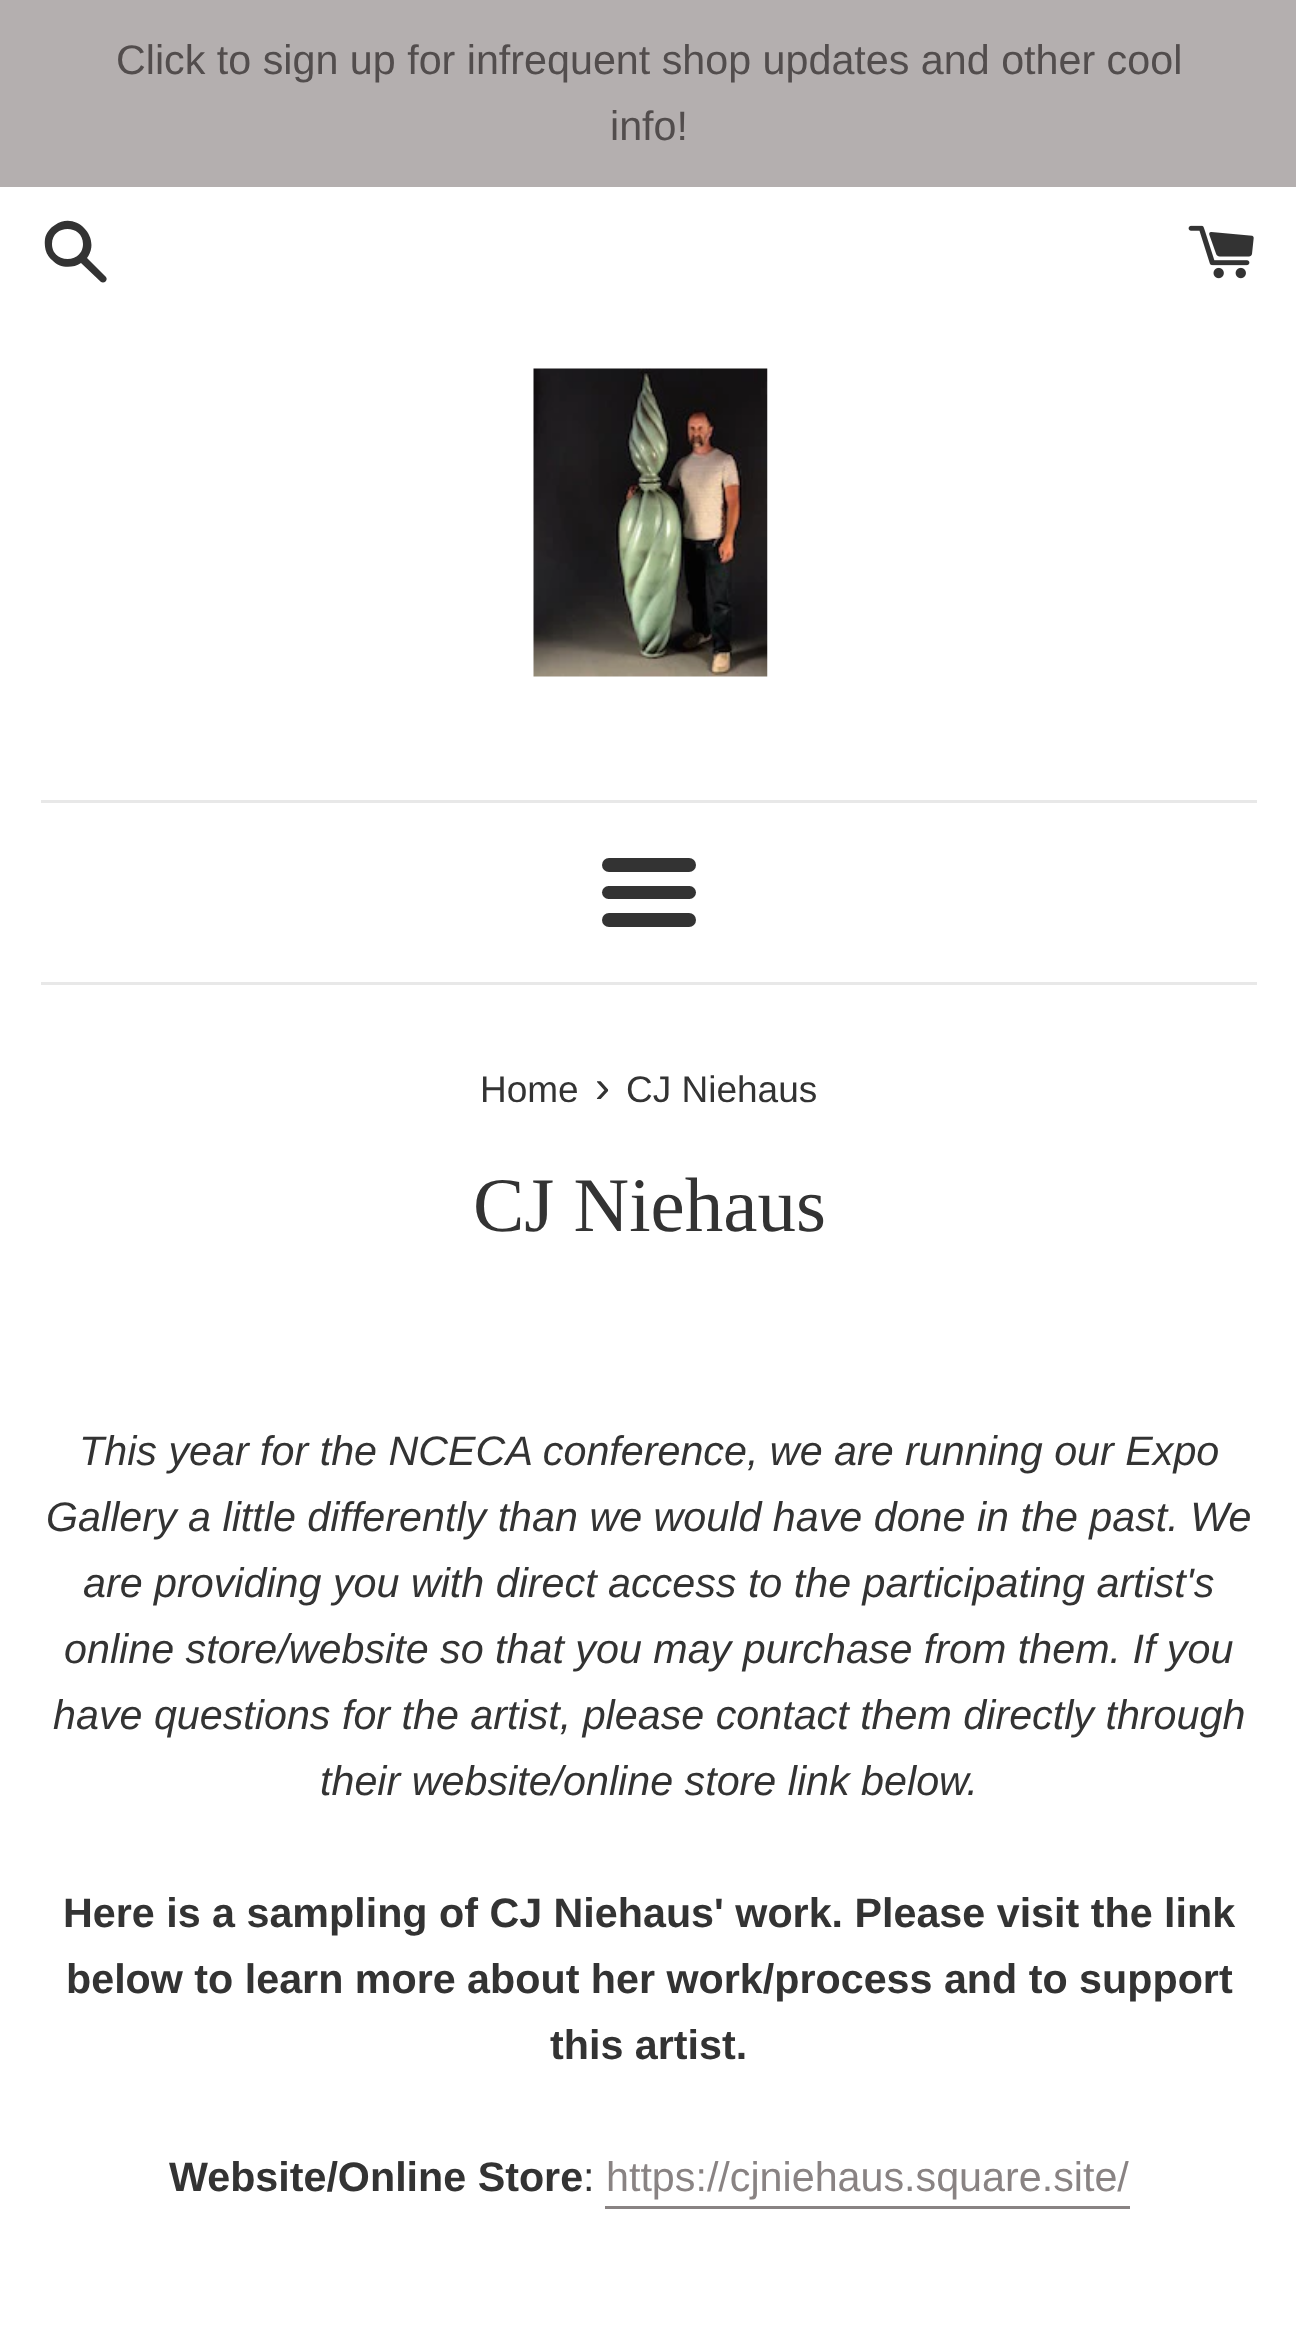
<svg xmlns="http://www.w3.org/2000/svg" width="1296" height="2332">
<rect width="100%" height="100%" fill="#fff"/>
<rect width="1296" height="187" fill="#b4afaf"/>
<text x="116" y="74" style="font-family:Liberation Sans;font-size:41.25px;fill:#524d4d">Click to sign up for infrequent shop updates and other cool</text>
<text x="610" y="140" style="font-family:Liberation Sans;font-size:41.25px;fill:#524d4d">info!</text>
<path d="M105 276l-18-18c15-20-11-48-32-33c-5 3-9 8-10 14c-1 8 1 16 7 21c7 8 20 9 29 3l20 19c4 2 8-3 4-6zm-53-32c0-20 31-20 31 0c0 20-31 20-31 0z" fill="#333"/>
<image x="1188" y="225" width="66" height="54" href="media/1.png"/>
<image x="533" y="368" width="235" height="309" href="media/2.png"/>
<rect x="41" y="800" width="1216" height="3" fill="#e8e8e8"/>
<rect x="602" y="858" width="94" height="14" rx="7" fill="#333"/>
<rect x="602" y="886" width="94" height="13" rx="6.5" fill="#333"/>
<rect x="602" y="913" width="94" height="14" rx="7" fill="#333"/>
<rect x="41" y="982" width="1216" height="3" fill="#e8e8e8"/>
<text x="480" y="1102" style="font-family:Liberation Sans;font-size:37px;fill:#333">Home</text>
<text x="595" y="1102" style="font-family:Liberation Sans;font-size:45px;fill:#333">›</text>
<text x="626" y="1102" style="font-family:Liberation Sans;font-size:37px;fill:#333">CJ Niehaus</text>
<text x="473" y="1231" style="font-family:Liberation Serif;font-size:77px;fill:#333">CJ Niehaus</text>
<text x="79" y="1465" style="font-family:Liberation Sans;font-size:41.25px;font-style:italic;fill:#333">This year for the NCECA conference, we are running our Expo</text>
<text x="46" y="1531" style="font-family:Liberation Sans;font-size:41.25px;font-style:italic;fill:#333">Gallery a little differently than we would have done in the past. We</text>
<text x="83" y="1597" style="font-family:Liberation Sans;font-size:41.25px;font-style:italic;fill:#333">are providing you with direct access to the participating artist's</text>
<text x="64" y="1663" style="font-family:Liberation Sans;font-size:41.25px;font-style:italic;fill:#333">online store/website so that you may purchase from them. If you</text>
<text x="53" y="1729" style="font-family:Liberation Sans;font-size:41.25px;font-style:italic;fill:#333">have questions for the artist, please contact them directly through</text>
<text x="320" y="1795" style="font-family:Liberation Sans;font-size:41.25px;font-style:italic;fill:#333">their website/online store link below.</text>
<text x="63" y="1927" style="font-family:Liberation Sans;font-size:41.25px;font-weight:bold;fill:#333">Here is a sampling of CJ Niehaus' work. Please visit the link</text>
<text x="66" y="1993" style="font-family:Liberation Sans;font-size:41.25px;font-weight:bold;fill:#333">below to learn more about her work/process and to support</text>
<text x="550" y="2059" style="font-family:Liberation Sans;font-size:41.25px;font-weight:bold;fill:#333">this artist.</text>
<text x="169" y="2191" style="font-family:Liberation Sans;font-size:41.25px;font-weight:bold;fill:#333">Website/Online Store</text>
<text x="583" y="2191" style="font-family:Liberation Sans;font-size:41.25px;fill:#333">:</text>
<text x="606" y="2191" style="font-family:Liberation Sans;font-size:41.25px;fill:#898383">https://cjniehaus.square.site/</text>
<rect x="605" y="2206" width="525" height="3" fill="#898383"/>
</svg>
